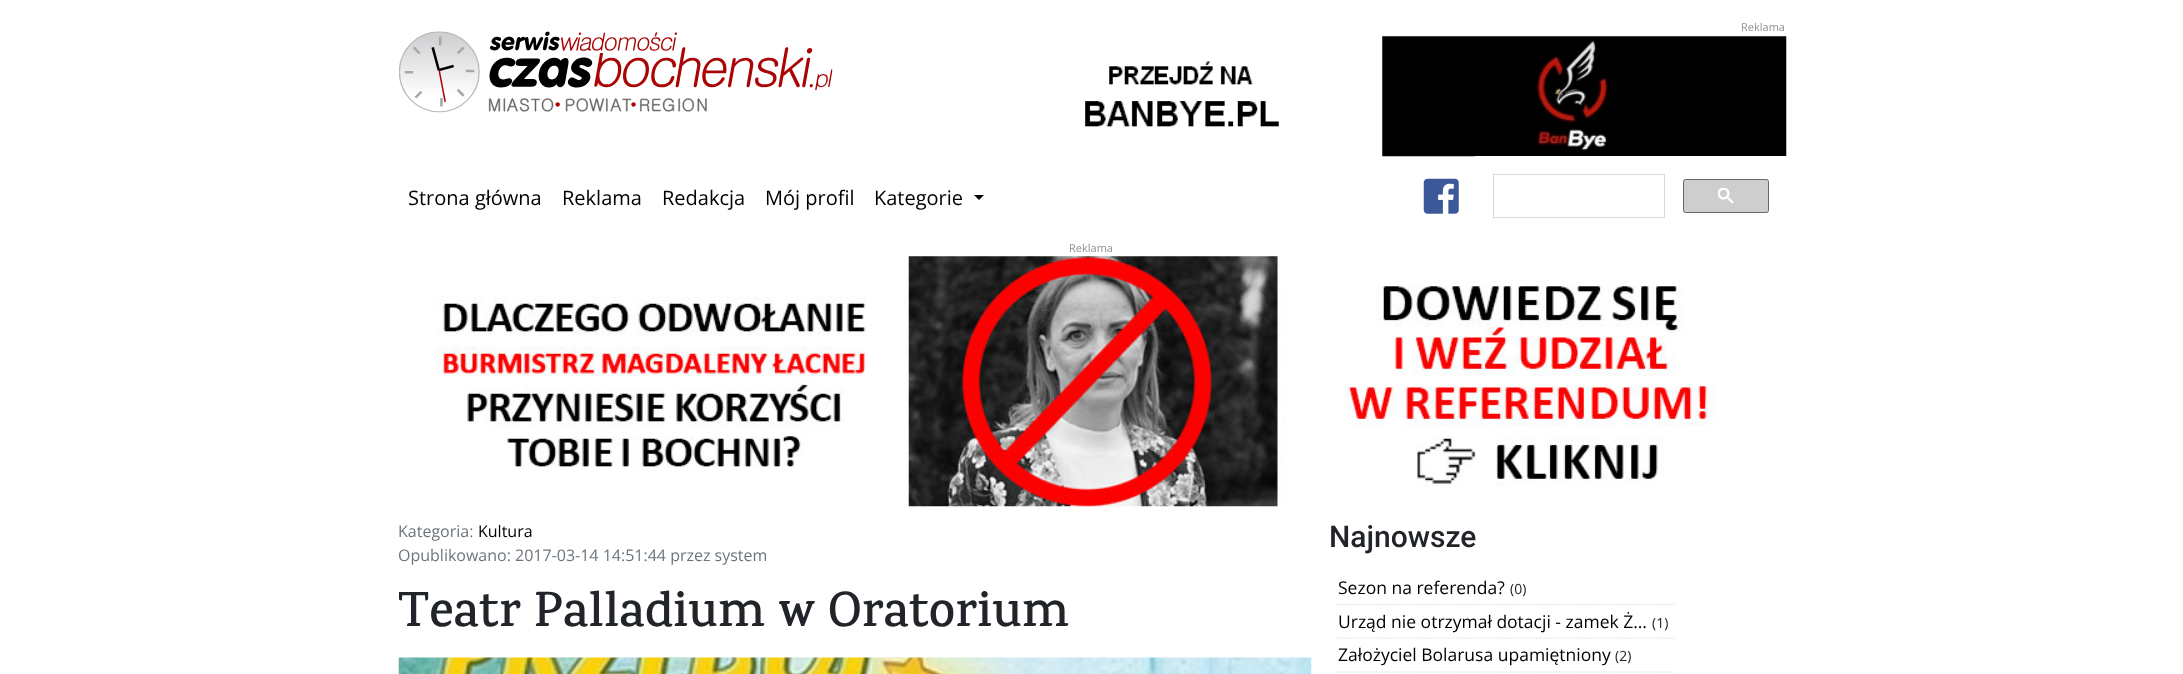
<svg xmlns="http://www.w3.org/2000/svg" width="2183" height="674">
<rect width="100%" height="100%" fill="#fff"/>
<text x="1741" y="31" style="font-family:Open Sans;font-size:11px;fill:#909090">Reklama</text>
<image x="1085" y="36" width="702" height="121" href="media/1.png"/>
<image x="399" y="31" width="434" height="82" href="media/2.png"/>
<text x="408" y="205" style="font-family:Open Sans;font-size:20px;fill:#000">Strona główna</text>
<text x="562" y="205" style="font-family:Open Sans;font-size:20px;fill:#000">Reklama</text>
<text x="662" y="205" style="font-family:Open Sans;font-size:20px;fill:#000">Redakcja</text>
<text x="765" y="205" style="font-family:Open Sans;font-size:20px;fill:#000">Mój profil</text>
<text x="874" y="205" style="font-family:Open Sans;font-size:20px;fill:#000">Kategorie</text>
<path d="M974 195h10l-5 5z" fill="#000"/>
<image x="1423" y="178" width="36" height="36" href="media/3.png"/>
<rect x="1475" y="156" width="311" height="1" fill="#fff"/>
<rect x="1493.5" y="174.5" width="171" height="43" fill="none" stroke="#d9d9d9"/>
<rect x="1683.5" y="179.5" width="85" height="33" rx="2" fill="#cecece" stroke="#666"/>
<image x="1718" y="188" width="16" height="16" href="media/4.png"/>
<text x="1069" y="252" style="font-family:Open Sans;font-size:11px;fill:#909090">Reklama</text>
<image x="435" y="256" width="1280" height="251" href="media/5.png"/>
<text x="398" y="537" style="font-family:Open Sans;font-size:16px;fill:#6c757d">Kategoria:</text>
<text x="478" y="537" style="font-family:Open Sans;font-size:16px;fill:#000">Kultura</text>
<text x="398" y="561" style="font-family:Open Sans;font-size:16px;fill:#6c757d">Opublikowano: 2017-03-14 14:51:44 przez system</text>
<text x="398" y="626" style="font-family:Karma;font-size:50px;font-weight:600;fill:#212529">Teatr Palladium w Oratorium</text>
<image x="398" y="657" width="914" height="17" href="media/6.png"/>
<text x="1329" y="547" style="font-family:Roboto;font-size:30px;font-weight:500;fill:#212529">Najnowsze</text>
<path d="M1336 604.5h340" fill="none" stroke="#dadada" stroke-width="1.2" stroke-dasharray="1.25 1.25"/>
<text x="1338" y="594" style="font-family:Open Sans;font-size:17.5px;fill:#000">Sezon na referenda?</text>
<text x="1510" y="594" style="font-family:Open Sans;font-size:14px;fill:#212529">(0)</text>
<path d="M1336 638h340" fill="none" stroke="#dadada" stroke-width="1.2" stroke-dasharray="1.25 1.25"/>
<text x="1338" y="628" style="font-family:Open Sans;font-size:17.5px;fill:#000">Urząd nie otrzymał dotacji - zamek Ż…</text>
<text x="1652" y="628" style="font-family:Open Sans;font-size:14px;fill:#212529">(1)</text>
<path d="M1336 672h340" fill="none" stroke="#dadada" stroke-width="1.2" stroke-dasharray="1.25 1.25"/>
<text x="1338" y="661" style="font-family:Open Sans;font-size:17.5px;fill:#000">Założyciel Bolarusa upamiętniony</text>
<text x="1615" y="661" style="font-family:Open Sans;font-size:14px;fill:#212529">(2)</text>
</svg>
